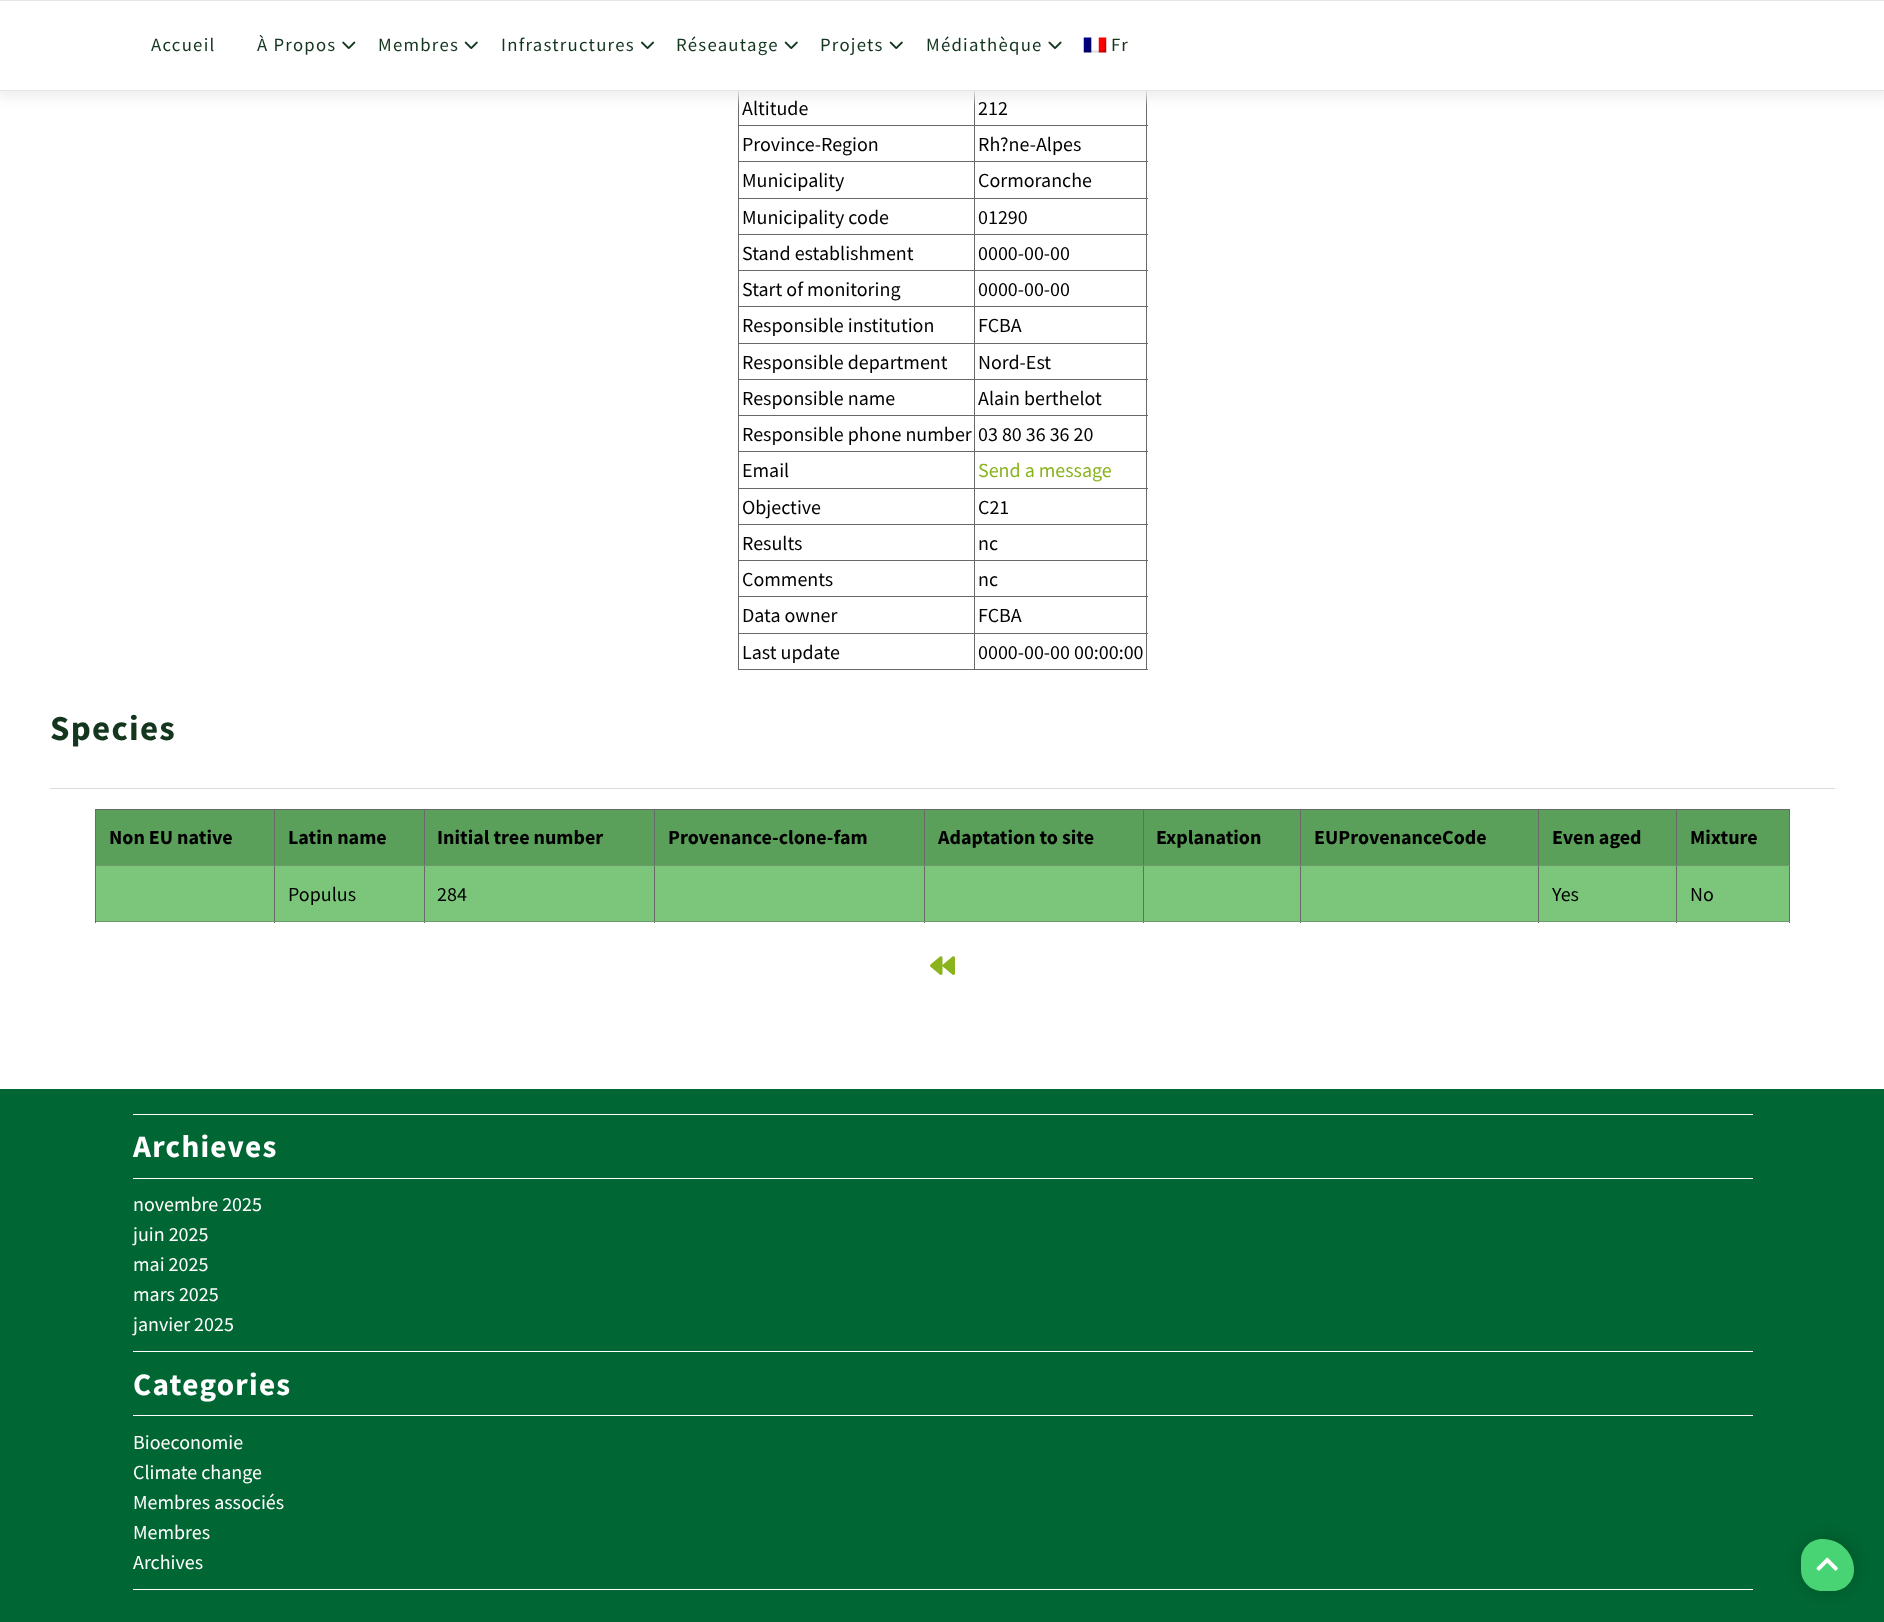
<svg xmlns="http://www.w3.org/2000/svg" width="1884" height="1622">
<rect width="100%" height="100%" fill="#fff"/>
<rect x="1146" y="91" width="1" height="579" fill="#696969"/>
<rect x="738" y="669" width="410" height="1" fill="#696969"/>
<rect x="738" y="91" width="1" height="579" fill="#696969"/>
<rect x="974" y="125" width="174" height="1" fill="#696969"/>
<rect x="974" y="161" width="174" height="1" fill="#696969"/>
<rect x="974" y="198" width="174" height="1" fill="#696969"/>
<rect x="974" y="234" width="174" height="1" fill="#696969"/>
<rect x="974" y="270" width="174" height="1" fill="#696969"/>
<rect x="974" y="306" width="174" height="1" fill="#696969"/>
<rect x="974" y="343" width="174" height="1" fill="#696969"/>
<rect x="974" y="379" width="174" height="1" fill="#696969"/>
<rect x="974" y="415" width="174" height="1" fill="#696969"/>
<rect x="974" y="451" width="174" height="1" fill="#696969"/>
<rect x="974" y="488" width="174" height="1" fill="#696969"/>
<rect x="974" y="524" width="174" height="1" fill="#696969"/>
<rect x="974" y="560" width="174" height="1" fill="#696969"/>
<rect x="974" y="596" width="174" height="1" fill="#696969"/>
<rect x="974" y="633" width="174" height="1" fill="#696969"/>
<rect x="974" y="633" width="1" height="37" fill="#696969"/>
<rect x="738" y="633" width="237" height="1" fill="#696969"/>
<rect x="974" y="596" width="1" height="38" fill="#696969"/>
<rect x="738" y="596" width="237" height="1" fill="#696969"/>
<rect x="974" y="560" width="1" height="38" fill="#696969"/>
<rect x="738" y="560" width="237" height="1" fill="#696969"/>
<rect x="974" y="524" width="1" height="37" fill="#696969"/>
<rect x="738" y="524" width="237" height="1" fill="#696969"/>
<rect x="974" y="488" width="1" height="37" fill="#696969"/>
<rect x="738" y="488" width="237" height="1" fill="#696969"/>
<rect x="974" y="451" width="1" height="38" fill="#696969"/>
<rect x="738" y="451" width="237" height="1" fill="#696969"/>
<rect x="974" y="415" width="1" height="38" fill="#696969"/>
<rect x="738" y="415" width="237" height="1" fill="#696969"/>
<rect x="974" y="379" width="1" height="37" fill="#696969"/>
<rect x="738" y="379" width="237" height="1" fill="#696969"/>
<rect x="974" y="343" width="1" height="37" fill="#696969"/>
<rect x="738" y="343" width="237" height="1" fill="#696969"/>
<rect x="974" y="306" width="1" height="38" fill="#696969"/>
<rect x="738" y="306" width="237" height="1" fill="#696969"/>
<rect x="974" y="270" width="1" height="38" fill="#696969"/>
<rect x="738" y="270" width="237" height="1" fill="#696969"/>
<rect x="974" y="234" width="1" height="37" fill="#696969"/>
<rect x="738" y="234" width="237" height="1" fill="#696969"/>
<rect x="974" y="198" width="1" height="37" fill="#696969"/>
<rect x="738" y="198" width="237" height="1" fill="#696969"/>
<rect x="974" y="161" width="1" height="38" fill="#696969"/>
<rect x="738" y="161" width="237" height="1" fill="#696969"/>
<rect x="974" y="125" width="1" height="38" fill="#696969"/>
<rect x="738" y="125" width="237" height="1" fill="#696969"/>
<rect x="974" y="89" width="1" height="37" fill="#696969"/>
<rect x="-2" y="1" width="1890" height="97" fill="#eee" filter="blur(6px)"/>
<rect y="1" width="1884" height="89" fill="#fff"/>
<rect width="1884" height="1" fill="#e5e5e5"/>
<rect y="90" width="1884" height="1" fill="#e5e5e5"/>
<text x="151" y="51" style="font-family:Source Sans Pro;font-size:18.75px;letter-spacing:1.25px;fill:#14361f">Accueil</text>
<text x="257" y="51" style="font-family:Source Sans Pro;font-size:18.75px;letter-spacing:1.25px;fill:#14361f">À Propos</text>
<image x="342" y="41" width="14" height="8" href="media/1.png"/>
<text x="378" y="51" style="font-family:Source Sans Pro;font-size:18.75px;letter-spacing:1.25px;fill:#14361f">Membres</text>
<image x="464" y="41" width="14" height="8" href="media/2.png"/>
<text x="501" y="51" style="font-family:Source Sans Pro;font-size:18.75px;letter-spacing:1.25px;fill:#14361f">Infrastructures</text>
<image x="641" y="41" width="13" height="8" href="media/3.png"/>
<text x="676" y="51" style="font-family:Source Sans Pro;font-size:18.75px;letter-spacing:1.25px;fill:#14361f">Réseautage</text>
<image x="784" y="41" width="14" height="8" href="media/2.png"/>
<text x="820" y="51" style="font-family:Source Sans Pro;font-size:18.75px;letter-spacing:1.25px;fill:#14361f">Projets</text>
<image x="889" y="41" width="14" height="8" href="media/2.png"/>
<text x="926" y="51" style="font-family:Source Sans Pro;font-size:18.75px;letter-spacing:1.25px;fill:#14361f">Médiathèque</text>
<image x="1048" y="41" width="14" height="8" href="media/4.png"/>
<image x="1083" y="37" width="24" height="16" href="media/5.png"/>
<text x="1111" y="51" style="font-family:Source Sans Pro;font-size:18.75px;letter-spacing:1.25px;fill:#14361f">Fr</text>
<text x="742" y="115" style="font-family:Source Sans Pro;font-size:20px;fill:#000">Altitude</text>
<text x="978" y="115" style="font-family:Source Sans Pro;font-size:20px;fill:#000">212</text>
<text x="742" y="151" style="font-family:Source Sans Pro;font-size:20px;fill:#000">Province-Region</text>
<text x="978" y="151" style="font-family:Source Sans Pro;font-size:20px;fill:#000">Rh?ne-Alpes</text>
<text x="742" y="187" style="font-family:Source Sans Pro;font-size:20px;fill:#000">Municipality</text>
<text x="978" y="187" style="font-family:Source Sans Pro;font-size:20px;fill:#000">Cormoranche</text>
<text x="742" y="224" style="font-family:Source Sans Pro;font-size:20px;fill:#000">Municipality code</text>
<text x="978" y="224" style="font-family:Source Sans Pro;font-size:20px;fill:#000">01290</text>
<text x="742" y="260" style="font-family:Source Sans Pro;font-size:20px;fill:#000">Stand establishment</text>
<text x="978" y="260" style="font-family:Source Sans Pro;font-size:20px;fill:#000">0000-00-00</text>
<text x="742" y="296" style="font-family:Source Sans Pro;font-size:20px;fill:#000">Start of monitoring</text>
<text x="978" y="296" style="font-family:Source Sans Pro;font-size:20px;fill:#000">0000-00-00</text>
<text x="742" y="332" style="font-family:Source Sans Pro;font-size:20px;fill:#000">Responsible institution</text>
<text x="978" y="332" style="font-family:Source Sans Pro;font-size:20px;fill:#000">FCBA</text>
<text x="742" y="369" style="font-family:Source Sans Pro;font-size:20px;fill:#000">Responsible department</text>
<text x="978" y="369" style="font-family:Source Sans Pro;font-size:20px;fill:#000">Nord-Est</text>
<text x="742" y="405" style="font-family:Source Sans Pro;font-size:20px;fill:#000">Responsible name</text>
<text x="978" y="405" style="font-family:Source Sans Pro;font-size:20px;fill:#000">Alain berthelot</text>
<text x="742" y="441" style="font-family:Source Sans Pro;font-size:20px;fill:#000">Responsible phone number</text>
<text x="978" y="441" style="font-family:Source Sans Pro;font-size:20px;fill:#000">03 80 36 36 20</text>
<text x="742" y="477" style="font-family:Source Sans Pro;font-size:20px;fill:#000">Email</text>
<text x="978" y="477" style="font-family:Source Sans Pro;font-size:20px;fill:#8bb31d">Send a message</text>
<text x="742" y="514" style="font-family:Source Sans Pro;font-size:20px;fill:#000">Objective</text>
<text x="978" y="514" style="font-family:Source Sans Pro;font-size:20px;fill:#000">C21</text>
<text x="742" y="550" style="font-family:Source Sans Pro;font-size:20px;fill:#000">Results</text>
<text x="978" y="550" style="font-family:Source Sans Pro;font-size:20px;fill:#000">nc</text>
<text x="742" y="586" style="font-family:Source Sans Pro;font-size:20px;fill:#000">Comments</text>
<text x="978" y="586" style="font-family:Source Sans Pro;font-size:20px;fill:#000">nc</text>
<text x="742" y="622" style="font-family:Source Sans Pro;font-size:20px;fill:#000">Data owner</text>
<text x="978" y="622" style="font-family:Source Sans Pro;font-size:20px;fill:#000">FCBA</text>
<text x="742" y="659" style="font-family:Source Sans Pro;font-size:20px;fill:#000">Last update</text>
<text x="978" y="659" style="font-family:Source Sans Pro;font-size:20px;fill:#000">0000-00-00 00:00:00</text>
<text x="50" y="740" style="font-family:Source Sans Pro;font-size:35px;font-weight:bold;letter-spacing:1.25px;fill:#14361f">Species</text>
<rect x="50" y="788" width="1785" height="1" fill="#dbdbdb"/>
<rect x="95" y="809" width="1695" height="1" fill="#696969"/>
<rect x="1789" y="809" width="1" height="114" fill="#696969"/>
<rect x="96" y="810" width="178" height="55" fill="#5a9f5a"/>
<rect x="96" y="866" width="1693" height="55" fill="#7cc67c"/>
<rect x="1676" y="921" width="114" height="1" fill="#6b9b6b"/>
<rect x="1676" y="865" width="1" height="58" fill="#696969"/>
<rect x="1676" y="865" width="114" height="1" fill="#6b9b6b"/>
<rect x="1539" y="810" width="250" height="55" fill="#5a9f5a"/>
<rect x="1676" y="809" width="1" height="57" fill="#696969"/>
<rect x="1538" y="921" width="140" height="1" fill="#6b9b6b"/>
<rect x="1538" y="865" width="1" height="58" fill="#696969"/>
<rect x="1538" y="865" width="140" height="1" fill="#6b9b6b"/>
<rect x="1538" y="809" width="1" height="57" fill="#696969"/>
<rect x="1300" y="921" width="239" height="1" fill="#6b9b6b"/>
<rect x="1300" y="865" width="1" height="58" fill="#696969"/>
<rect x="1300" y="865" width="239" height="1" fill="#6b9b6b"/>
<rect x="1300" y="809" width="1" height="57" fill="#696969"/>
<rect x="1143" y="921" width="158" height="1" fill="#6b9b6b"/>
<rect x="1143" y="865" width="1" height="58" fill="#696969"/>
<rect x="1143" y="865" width="158" height="1" fill="#6b9b6b"/>
<rect x="1143" y="809" width="1" height="57" fill="#696969"/>
<rect x="924" y="921" width="220" height="1" fill="#6b9b6b"/>
<rect x="924" y="865" width="1" height="58" fill="#696969"/>
<rect x="924" y="865" width="220" height="1" fill="#6b9b6b"/>
<rect x="924" y="809" width="1" height="57" fill="#696969"/>
<rect x="654" y="921" width="271" height="1" fill="#6b9b6b"/>
<rect x="654" y="865" width="1" height="58" fill="#696969"/>
<rect x="654" y="865" width="271" height="1" fill="#6b9b6b"/>
<rect x="654" y="809" width="1" height="57" fill="#696969"/>
<rect x="424" y="921" width="231" height="1" fill="#6b9b6b"/>
<rect x="424" y="865" width="1" height="58" fill="#696969"/>
<rect x="424" y="865" width="231" height="1" fill="#6b9b6b"/>
<rect x="424" y="809" width="1" height="57" fill="#696969"/>
<rect x="274" y="921" width="151" height="1" fill="#6b9b6b"/>
<rect x="274" y="865" width="1" height="58" fill="#696969"/>
<rect x="274" y="865" width="151" height="1" fill="#6b9b6b"/>
<rect x="274" y="809" width="1" height="57" fill="#696969"/>
<rect x="95" y="921" width="180" height="1" fill="#6b9b6b"/>
<rect x="95" y="865" width="1" height="58" fill="#696969"/>
<rect x="95" y="865" width="180" height="1" fill="#6b9b6b"/>
<rect x="95" y="809" width="1" height="57" fill="#696969"/>
<text x="109" y="844" style="font-family:Source Sans Pro;font-size:20px;font-weight:bold;fill:#000">Non EU native</text>
<rect x="275" y="810" width="149" height="55" fill="#5a9f5a"/>
<text x="288" y="844" style="font-family:Source Sans Pro;font-size:20px;font-weight:bold;fill:#000">Latin name</text>
<rect x="425" y="810" width="229" height="55" fill="#5a9f5a"/>
<text x="437" y="844" style="font-family:Source Sans Pro;font-size:20px;font-weight:bold;fill:#000">Initial tree number</text>
<rect x="655" y="810" width="269" height="55" fill="#5a9f5a"/>
<text x="668" y="844" style="font-family:Source Sans Pro;font-size:20px;font-weight:bold;fill:#000">Provenance-clone-fam</text>
<rect x="925" y="810" width="218" height="55" fill="#5a9f5a"/>
<text x="938" y="844" style="font-family:Source Sans Pro;font-size:20px;font-weight:bold;fill:#000">Adaptation to site</text>
<rect x="1144" y="810" width="156" height="55" fill="#5a9f5a"/>
<text x="1156" y="844" style="font-family:Source Sans Pro;font-size:20px;font-weight:bold;fill:#000">Explanation</text>
<rect x="1301" y="810" width="237" height="55" fill="#5a9f5a"/>
<text x="1314" y="844" style="font-family:Source Sans Pro;font-size:20px;font-weight:bold;fill:#000">EUProvenanceCode</text>
<text x="1552" y="844" style="font-family:Source Sans Pro;font-size:20px;font-weight:bold;fill:#000">Even aged</text>
<text x="1690" y="844" style="font-family:Source Sans Pro;font-size:20px;font-weight:bold;fill:#000">Mixture</text>
<text x="288" y="901" style="font-family:Source Sans Pro;font-size:20px;fill:#000">Populus</text>
<text x="437" y="901" style="font-family:Source Sans Pro;font-size:20px;fill:#000">284</text>
<text x="1552" y="901" style="font-family:Source Sans Pro;font-size:20px;fill:#000">Yes</text>
<text x="1690" y="901" style="font-family:Source Sans Pro;font-size:20px;fill:#000">No</text>
<image x="930" y="956" width="25" height="19" href="media/6.png"/>
<rect y="1089" width="1884" height="533" fill="#063"/>
<rect x="133" y="1114" width="1620" height="1" fill="#fff"/>
<rect x="133" y="1178" width="1620" height="1" fill="#fff"/>
<text x="133" y="1157" style="font-family:Source Sans Pro;font-size:31.25px;font-weight:bold;letter-spacing:1.25px;fill:#fff">Archieves</text>
<text x="133" y="1211" style="font-family:Source Sans Pro;font-size:20px;fill:#fff">novembre 2025</text>
<text x="133" y="1241" style="font-family:Source Sans Pro;font-size:20px;fill:#fff">juin 2025</text>
<text x="133" y="1271" style="font-family:Source Sans Pro;font-size:20px;fill:#fff">mai 2025</text>
<text x="133" y="1301" style="font-family:Source Sans Pro;font-size:20px;fill:#fff">mars 2025</text>
<text x="133" y="1331" style="font-family:Source Sans Pro;font-size:20px;fill:#fff">janvier 2025</text>
<rect x="133" y="1351" width="1620" height="1" fill="#fff"/>
<rect x="133" y="1415" width="1620" height="1" fill="#fff"/>
<text x="133" y="1395" style="font-family:Source Sans Pro;font-size:31.25px;font-weight:bold;letter-spacing:1.25px;fill:#fff">Categories</text>
<text x="133" y="1449" style="font-family:Source Sans Pro;font-size:20px;fill:#fff">Bioeconomie</text>
<text x="133" y="1479" style="font-family:Source Sans Pro;font-size:20px;fill:#fff">Climate change</text>
<text x="133" y="1509" style="font-family:Source Sans Pro;font-size:20px;fill:#fff">Membres associés</text>
<text x="133" y="1539" style="font-family:Source Sans Pro;font-size:20px;fill:#fff">Membres</text>
<text x="133" y="1569" style="font-family:Source Sans Pro;font-size:20px;fill:#fff">Archives</text>
<rect x="133" y="1589" width="1620" height="1" fill="#fff"/>
<rect x="1801" y="1539" width="53" height="52" rx="31" fill="#00000033" filter="blur(7.5px)"/>
<path d="M1822 1539h1c17 0 31 14 31 31c0 11.5-9.5 21-21 21h-11c-11.5 0-21-9.5-21-21v-10c0-11.5 9.5-21 21-21z" fill="#48d475"/>
<image x="1816" y="1557" width="22" height="14" href="media/7.png"/>
</svg>
